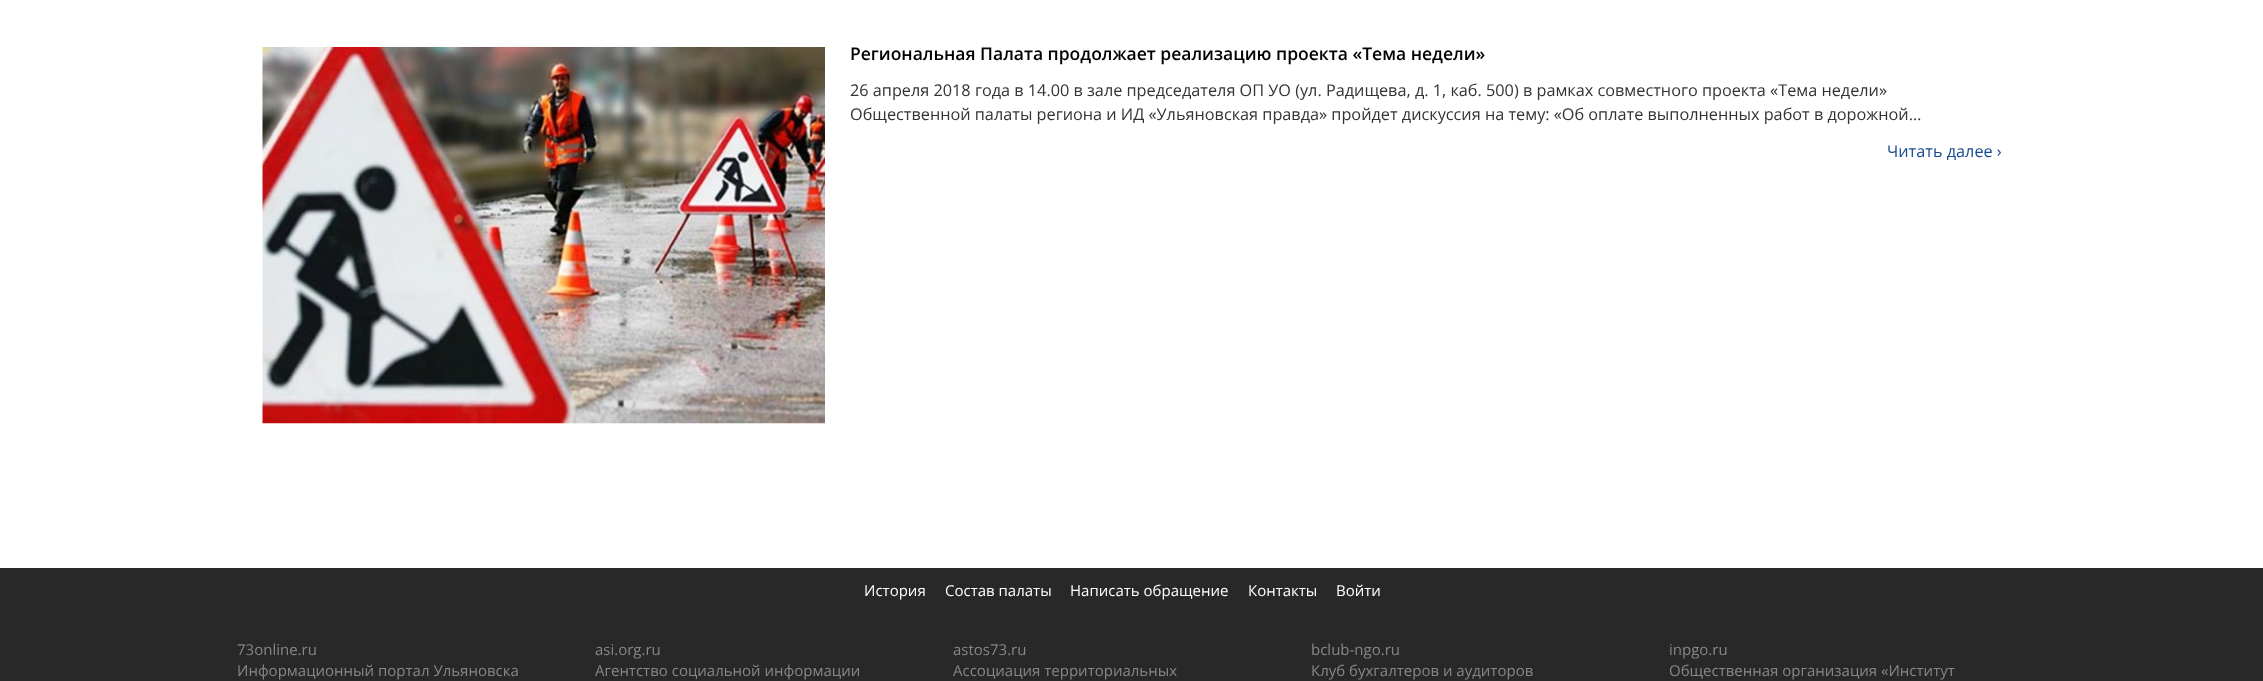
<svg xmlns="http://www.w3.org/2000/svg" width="2263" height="681">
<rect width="100%" height="100%" fill="#fff"/>
<image x="262" y="47" width="563" height="377" href="media/1.png"/>
<text x="850" y="60" style="font-family:Open Sans;font-size:17.5px;font-weight:600;fill:#000">Региональная Палата продолжает реализацию проекта «Тема недели»</text>
<text x="850" y="96" style="font-family:Open Sans;font-size:16.25px;fill:#333">26 апреля 2018 года в 14.00 в зале председателя ОП УО (ул. Радищева, д. 1, каб. 500) в рамках совместного проекта «Тема недели»</text>
<text x="850" y="120" style="font-family:Open Sans;font-size:16.25px;fill:#333">Общественной палаты региона и ИД «Ульяновская правда» пройдет дискуссия на тему: «Об оплате выполненных работ в дорожной…</text>
<text x="1887" y="157" style="font-family:Open Sans;font-size:16.25px;fill:#164b8f">Читать далее ›</text>
<rect y="568" width="2263" height="113" fill="#282828"/>
<text x="864" y="596" style="font-family:Open Sans;font-size:15px;fill:#fff">История</text>
<text x="945" y="596" style="font-family:Open Sans;font-size:15px;fill:#fff">Состав палаты</text>
<text x="1070" y="596" style="font-family:Open Sans;font-size:15px;fill:#fff">Написать обращение</text>
<text x="1248" y="596" style="font-family:Open Sans;font-size:15px;fill:#fff">Контакты</text>
<text x="1336" y="596" style="font-family:Open Sans;font-size:15px;fill:#fff">Войти</text>
<text x="237" y="655" style="font-family:Open Sans;font-size:15px;fill:#878787">73online.ru</text>
<text x="237" y="676" style="font-family:Open Sans;font-size:15px;fill:#878787">Информационный портал Ульяновска</text>
<text x="595" y="655" style="font-family:Open Sans;font-size:15px;fill:#878787">asi.org.ru</text>
<text x="595" y="676" style="font-family:Open Sans;font-size:15px;fill:#878787">Агентство социальной информации</text>
<text x="953" y="655" style="font-family:Open Sans;font-size:15px;fill:#878787">astos73.ru</text>
<text x="953" y="676" style="font-family:Open Sans;font-size:15px;fill:#878787">Ассоциация территориальных</text>
<text x="1311" y="655" style="font-family:Open Sans;font-size:15px;fill:#878787">bclub-ngo.ru</text>
<text x="1311" y="676" style="font-family:Open Sans;font-size:15px;fill:#878787">Клуб бухгалтеров и аудиторов</text>
<text x="1669" y="655" style="font-family:Open Sans;font-size:15px;fill:#878787">inpgo.ru</text>
<text x="1669" y="676" style="font-family:Open Sans;font-size:15px;fill:#878787">Общественная организация «Институт</text>
</svg>
